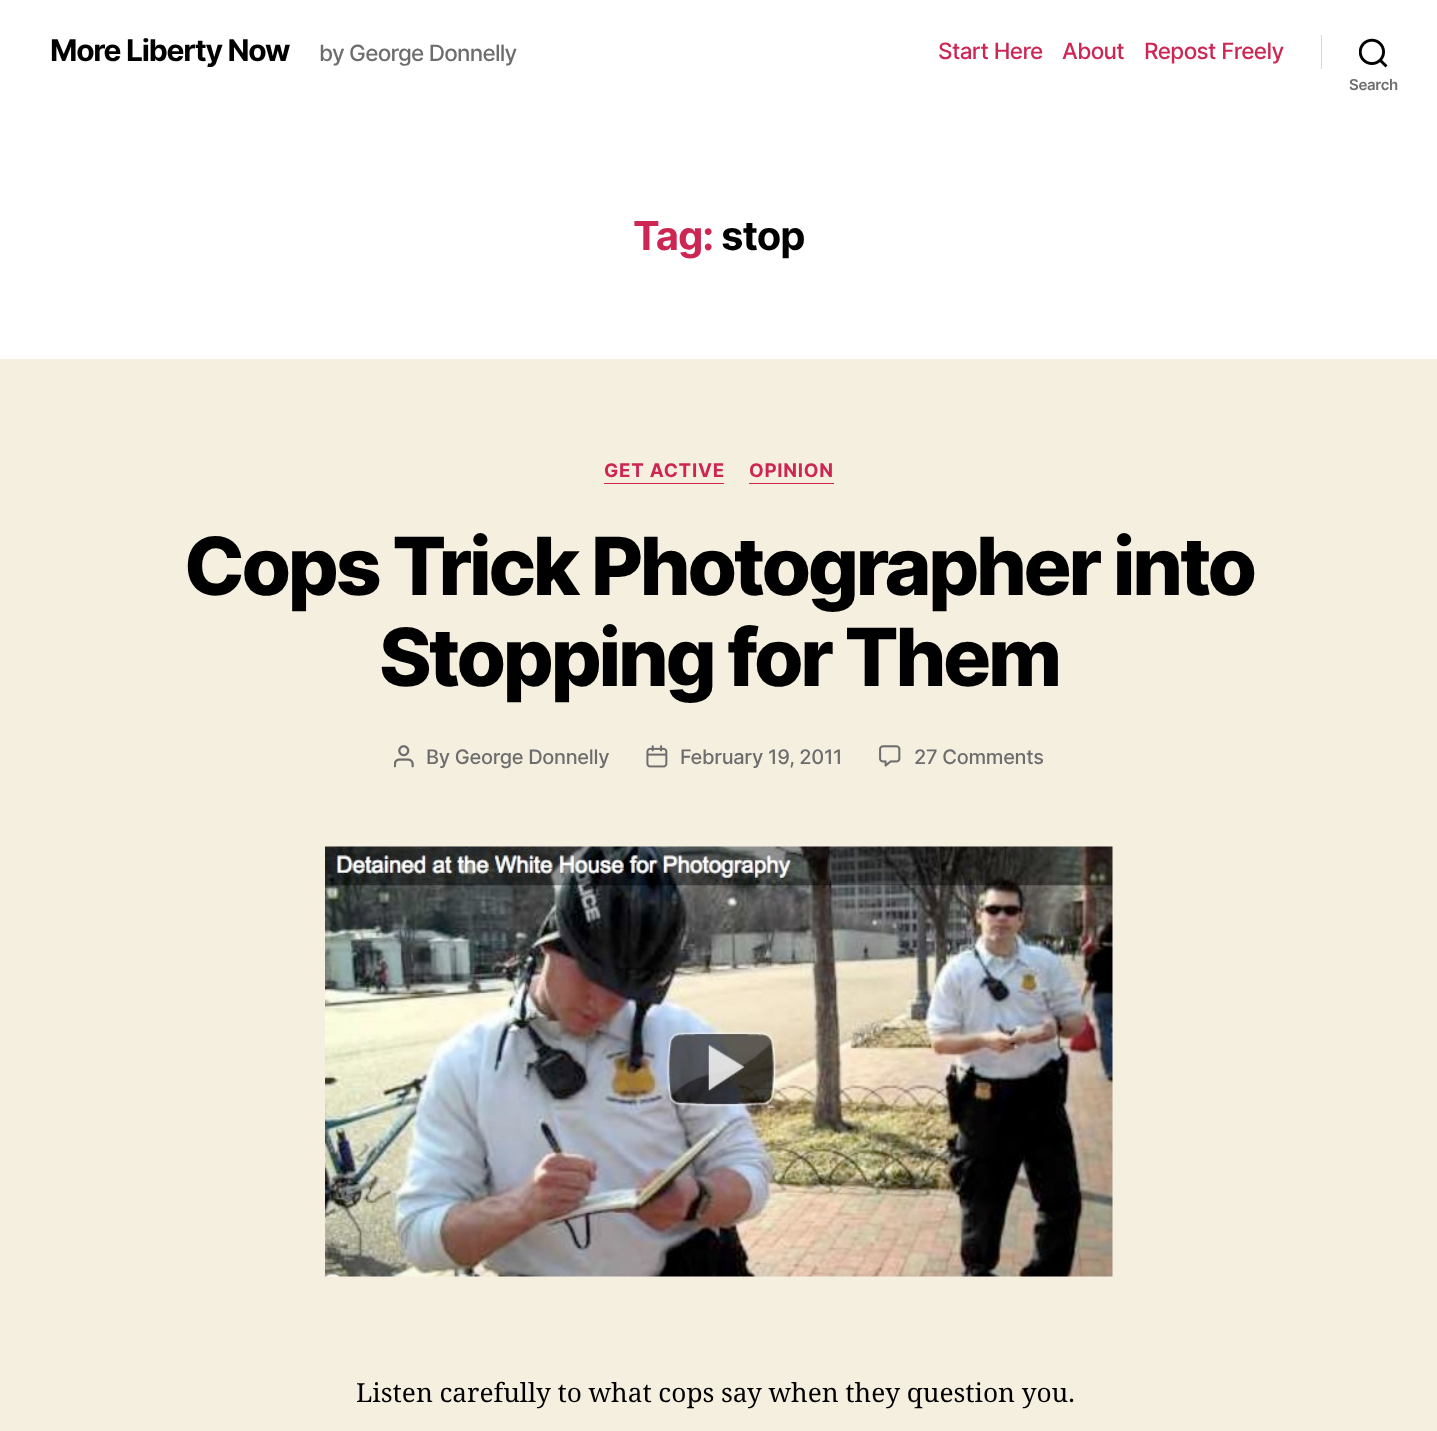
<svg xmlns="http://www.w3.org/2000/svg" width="1437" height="1431">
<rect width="100%" height="100%" fill="#f5efe0"/>
<rect width="1437" height="359" fill="#fff"/>
<text x="50" y="61" style="font-family:Inter;font-size:30px;font-weight:bold;letter-spacing:-1.25px;fill:#000">More Liberty Now</text>
<text x="319" y="61" style="font-family:Inter;font-size:22.5px;font-weight:500;letter-spacing:-0.75px;fill:#6d6d6d">by George Donnelly</text>
<text x="938" y="59" style="font-family:Inter;font-size:22.5px;font-weight:500;letter-spacing:-0.6px;fill:#cd2653">Start Here</text>
<text x="1062" y="59" style="font-family:Inter;font-size:22.5px;font-weight:500;letter-spacing:-0.6px;fill:#cd2653">About</text>
<text x="1144" y="59" style="font-family:Inter;font-size:22.5px;font-weight:500;letter-spacing:-0.6px;fill:#cd2653">Repost Freely</text>
<rect x="1321" y="35" width="1" height="34" fill="#dcd7ca"/>
<image x="1359" y="38" width="29" height="30" href="media/1.png"/>
<text x="1349" y="90" style="font-family:Inter;font-size:15px;font-weight:600;letter-spacing:-0.3px;fill:#6d6d6d">Search</text>
<text x="633" y="250" style="font-family:Inter;font-size:40px;font-weight:bold;letter-spacing:-1px;fill:#cd2653">Tag:</text>
<text x="721" y="250" style="font-family:Inter;font-size:40px;font-weight:bold;letter-spacing:-1px;fill:#000">stop</text>
<rect x="604" y="483" width="120" height="1" fill="#cd2653"/>
<text x="604" y="477" style="font-family:Inter;font-size:18.75px;font-weight:bold;letter-spacing:0.75px;fill:#cd2653">GET ACTIVE</text>
<rect x="749" y="483" width="85" height="1" fill="#cd2653"/>
<text x="749" y="477" style="font-family:Inter;font-size:18.75px;font-weight:bold;letter-spacing:0.75px;fill:#cd2653">OPINION</text>
<text x="184" y="595" style="font-family:Inter;font-size:80px;font-weight:800;letter-spacing:-3.3px;fill:#000">Cops Trick Photographer into</text>
<text x="379" y="686" style="font-family:Inter;font-size:80px;font-weight:800;letter-spacing:-3.3px;fill:#000">Stopping for Them</text>
<image x="394" y="745" width="20" height="23" href="media/2.png"/>
<text x="426" y="764" style="font-family:Inter;font-size:20px;font-weight:500;letter-spacing:-0.3px;fill:#6d6d6d">By George Donnelly</text>
<image x="646" y="745" width="22" height="23" href="media/3.png"/>
<text x="680" y="764" style="font-family:Inter;font-size:20px;font-weight:500;letter-spacing:-0.3px;fill:#6d6d6d">February 19, 2011</text>
<image x="879" y="745" width="22" height="22" href="media/4.png"/>
<text x="914" y="764" style="font-family:Inter;font-size:20px;font-weight:500;letter-spacing:-0.3px;fill:#6d6d6d">27 Comments</text>
<image x="325" y="846" width="788" height="431" href="media/5.png"/>
<text x="356" y="1402" word-spacing="-0.25" style="font-family:Noto Serif;font-size:26.25px;fill:#000">Listen carefully to what cops say when they question you.</text>
</svg>
